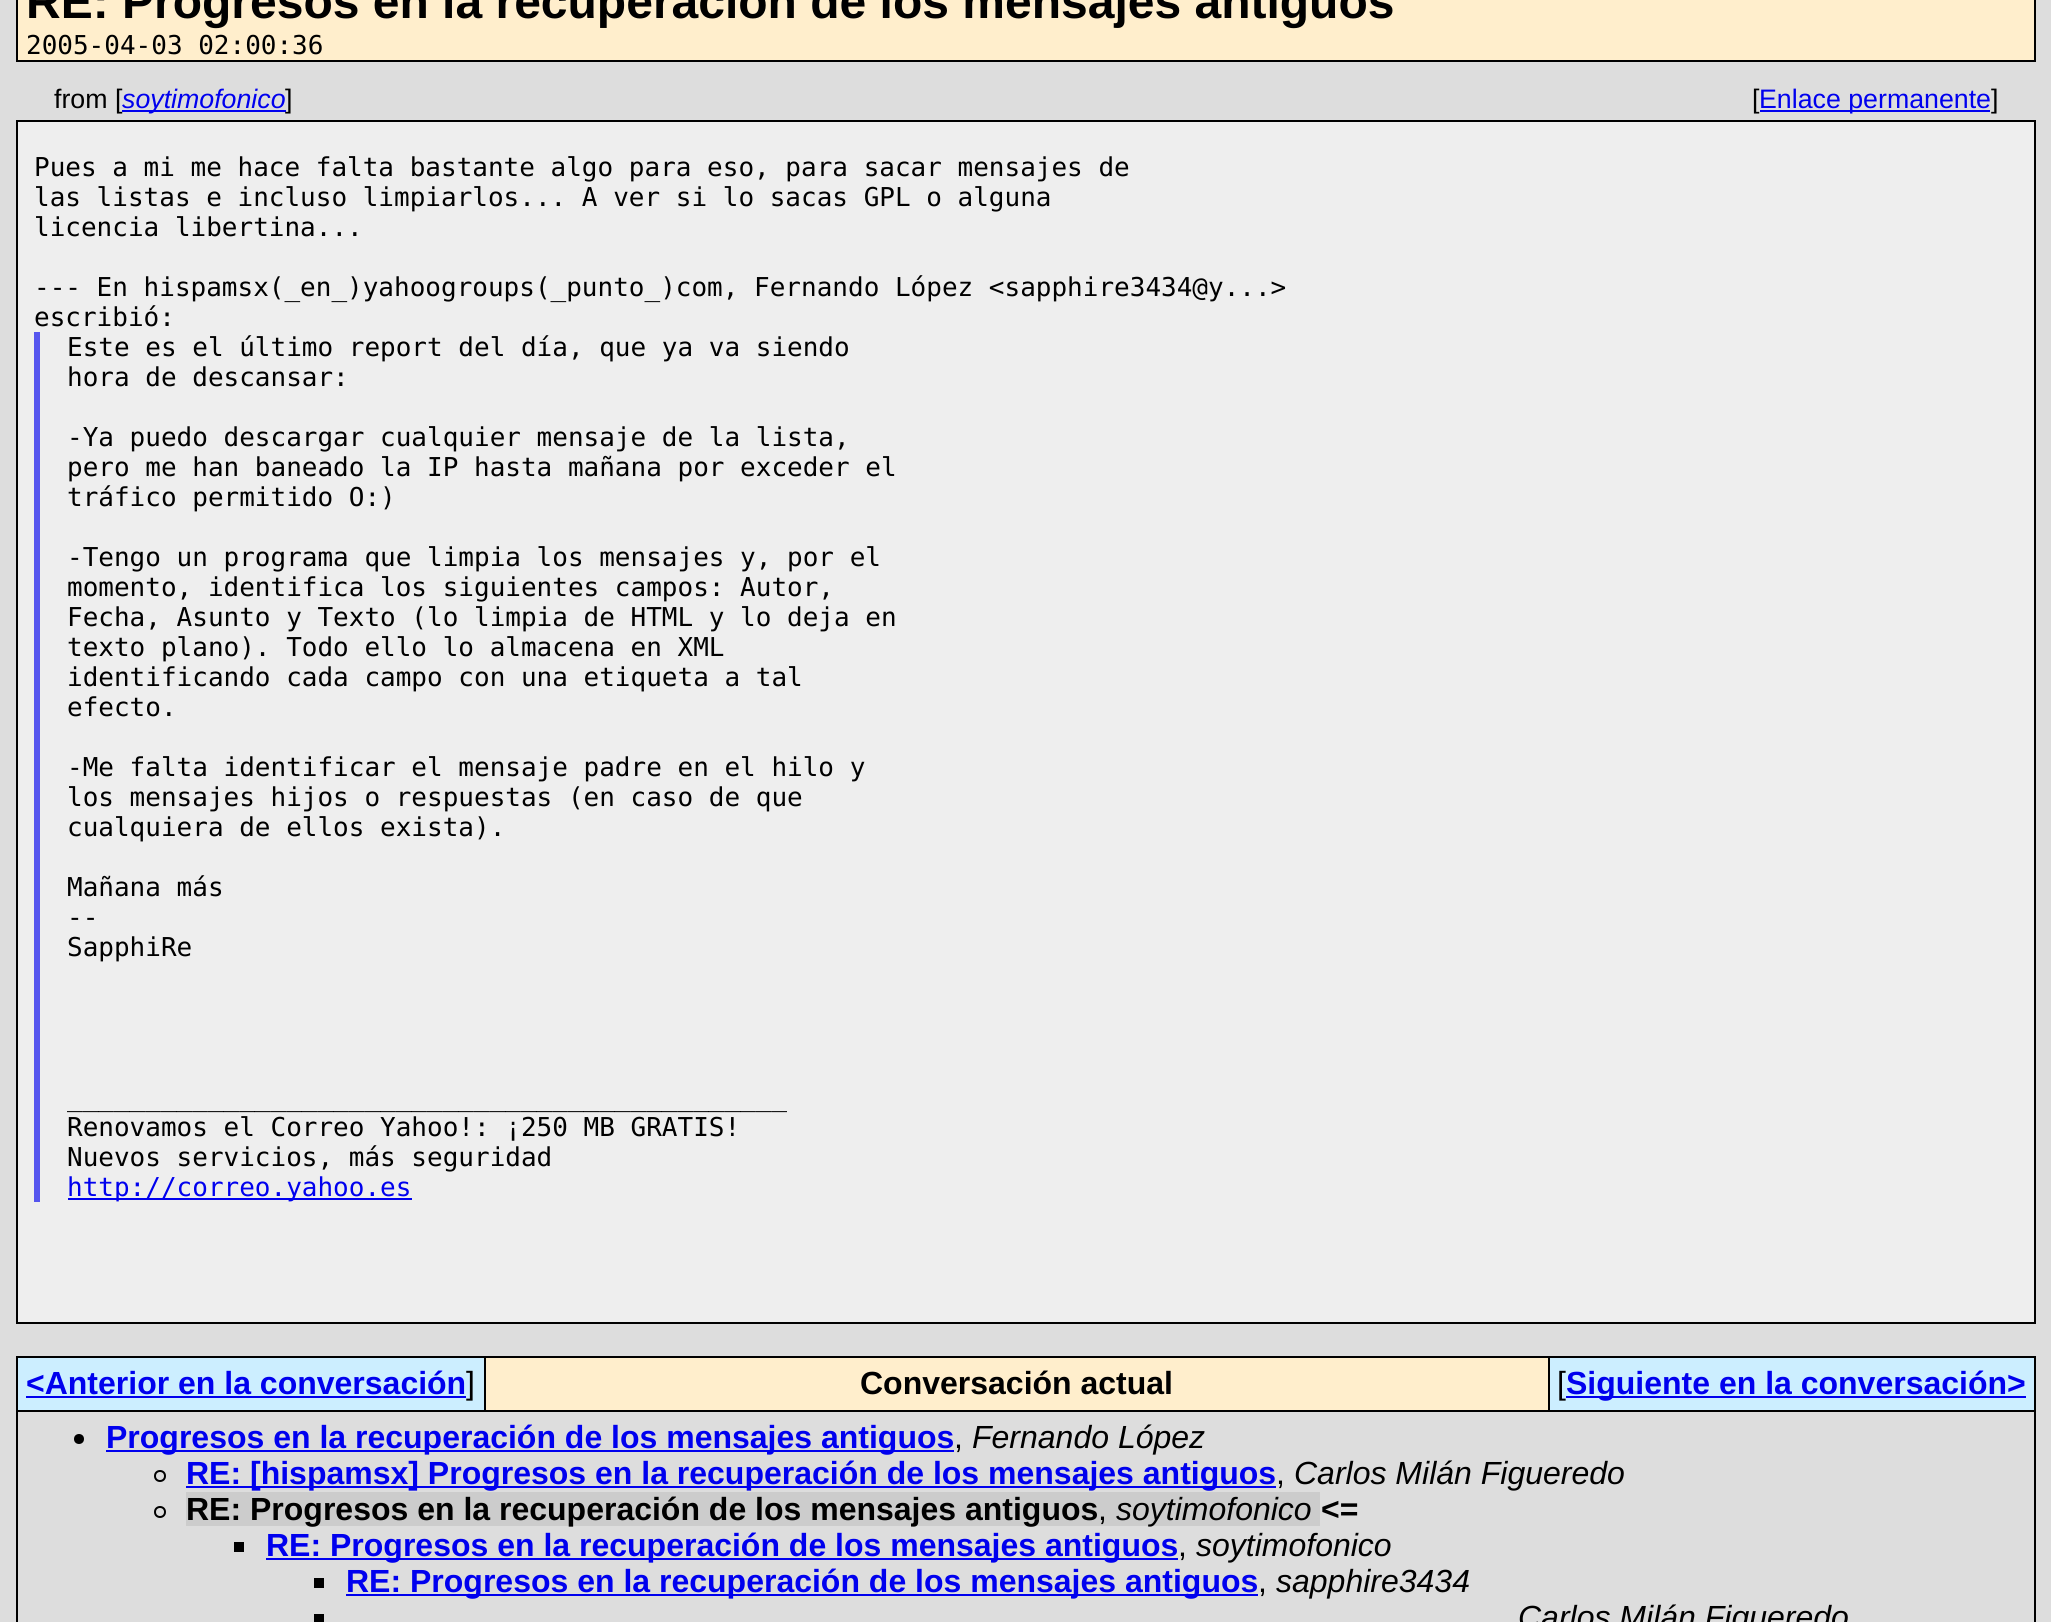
import math
import cairo

surface = cairo.ImageSurface(cairo.FORMAT_RGB24, 2051, 1622)
ctx = cairo.Context(surface)
options = cairo.FontOptions()
options.set_hint_metrics(cairo.HINT_METRICS_OFF)
options.set_hint_style(cairo.HINT_STYLE_NONE)
ctx.set_font_options(options)
ctx.set_miter_limit(4)


def set_color(code):
    ctx.set_source_rgb(*(v / 255 for v in bytes.fromhex(code[-6:])))


def draw_text(x, y, s, family, size, color, bold=False, italic=False):
    ctx.select_font_face(family, cairo.FONT_SLANT_ITALIC if italic else cairo.FONT_SLANT_NORMAL, cairo.FONT_WEIGHT_BOLD if bold else cairo.FONT_WEIGHT_NORMAL)
    ctx.set_font_size(size)
    set_color(color)
    ctx.move_to(x, y)
    ctx.show_text(s)


def fill_rect(x, y, w, h, color):
    set_color(color)
    ctx.rectangle(x, y, w, h)
    ctx.fill()


set_color("#dddddd")
ctx.paint()
set_color("#ffeecc")
ctx.rectangle(17, -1, 2018, 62)
ctx.fill_preserve()
set_color("#000000")
ctx.stroke()
draw_text(26, 18, "RE: Progresos en la recuperación de los mensajes antiguos", "Liberation Sans", 48, "#000000", bold=True)
draw_text(26, 54, "2005-04-03 02:00:36", "DejaVu Sans Mono", 26, "#000000")
draw_text(54, 108, "from [", "Liberation Sans", 26.75, "#000000")
fill_rect(122, 110, 164, 2, "#0000ee")
draw_text(122, 108, "soytimofonico", "Liberation Sans", 26.75, "#0000ee", italic=True)
draw_text(285, 108, "]", "Liberation Sans", 26.75, "#000000")
draw_text(1752, 108, "[", "Liberation Sans", 26.75, "#000000")
fill_rect(1760, 110, 230, 2, "#0000ee")
draw_text(1759, 108, "Enlace permanente", "Liberation Sans", 26.75, "#0000ee")
draw_text(1991, 108, "]", "Liberation Sans", 26.75, "#000000")
set_color("#eeeeee")
ctx.rectangle(17, 121, 2018, 1202)
ctx.fill_preserve()
set_color("#000000")
ctx.stroke()
draw_text(34, 176, "Pues a mi me hace falta bastante algo para eso, para sacar mensajes de", "DejaVu Sans Mono", 26, "#000000")
draw_text(34, 206, "las listas e incluso limpiarlos... A ver si lo sacas GPL o alguna", "DejaVu Sans Mono", 26, "#000000")
draw_text(34, 236, "licencia libertina...", "DejaVu Sans Mono", 26, "#000000")
draw_text(34, 296, "--- En hispamsx(_en_)yahoogroups(_punto_)com, Fernando López <sapphire3434@y...>", "DejaVu Sans Mono", 26, "#000000")
draw_text(34, 326, "escribió:", "DejaVu Sans Mono", 26, "#000000")
fill_rect(34, 332, 6, 870, "#5555ee")
draw_text(67, 356, "Este es el último report del día, que ya va siendo", "DejaVu Sans Mono", 26, "#000000")
draw_text(67, 386, "hora de descansar:", "DejaVu Sans Mono", 26, "#000000")
draw_text(67, 446, "-Ya puedo descargar cualquier mensaje de la lista,", "DejaVu Sans Mono", 26, "#000000")
draw_text(67, 476, "pero me han baneado la IP hasta mañana por exceder el", "DejaVu Sans Mono", 26, "#000000")
draw_text(67, 506, "tráfico permitido O:)", "DejaVu Sans Mono", 26, "#000000")
draw_text(67, 566, "-Tengo un programa que limpia los mensajes y, por el", "DejaVu Sans Mono", 26, "#000000")
draw_text(67, 596, "momento, identifica los siguientes campos: Autor,", "DejaVu Sans Mono", 26, "#000000")
draw_text(67, 626, "Fecha, Asunto y Texto (lo limpia de HTML y lo deja en", "DejaVu Sans Mono", 26, "#000000")
draw_text(67, 656, "texto plano). Todo ello lo almacena en XML", "DejaVu Sans Mono", 26, "#000000")
draw_text(67, 686, "identificando cada campo con una etiqueta a tal", "DejaVu Sans Mono", 26, "#000000")
draw_text(67, 716, "efecto.", "DejaVu Sans Mono", 26, "#000000")
draw_text(67, 776, "-Me falta identificar el mensaje padre en el hilo y", "DejaVu Sans Mono", 26, "#000000")
draw_text(67, 806, "los mensajes hijos o respuestas (en caso de que", "DejaVu Sans Mono", 26, "#000000")
draw_text(67, 836, "cualquiera de ellos exista).", "DejaVu Sans Mono", 26, "#000000")
draw_text(67, 896, "Mañana más", "DejaVu Sans Mono", 26, "#000000")
draw_text(67, 926, "--", "DejaVu Sans Mono", 26, "#000000")
draw_text(67, 956, "SapphiRe", "DejaVu Sans Mono", 26, "#000000")
draw_text(67, 1106, "______________________________________________", "DejaVu Sans Mono", 26, "#000000")
draw_text(67, 1136, "Renovamos el Correo Yahoo!: ¡250 MB GRATIS!", "DejaVu Sans Mono", 26, "#000000")
draw_text(67, 1166, "Nuevos servicios, más seguridad", "DejaVu Sans Mono", 26, "#000000")
fill_rect(68, 1198, 344, 2, "#0000ee")
draw_text(67, 1196, "http://correo.yahoo.es", "DejaVu Sans Mono", 26, "#0000ee")
fill_rect(16, 1356, 2020, 266, "#000000")
fill_rect(18, 1358, 466, 52, "#cceeff")
draw_text(26, 1394, "<Anterior en la conversación", "Liberation Sans", 32, "#0000ee", bold=True)
fill_rect(26, 1396, 440, 2, "#0000ee")
draw_text(466, 1394, "]", "Liberation Sans", 32, "#000000")
fill_rect(486, 1358, 1062, 52, "#ffeecc")
draw_text(860, 1394, "Conversación actual", "Liberation Sans", 32, "#000000", bold=True)
fill_rect(1550, 1358, 484, 52, "#cceeff")
draw_text(1557, 1394, "[", "Liberation Sans", 32, "#000000")
fill_rect(1566, 1396, 460, 2, "#0000ee")
draw_text(1566, 1394, "Siguiente en la conversación>", "Liberation Sans", 32, "#0000ee", bold=True)
fill_rect(18, 1412, 2016, 210, "#dddddd")
set_color("#000000")
ctx.new_path()
ctx.arc(79, 1439, 5, 0, 2 * math.pi)
ctx.fill()
fill_rect(106, 1450, 848, 2, "#0000ee")
draw_text(106, 1448, "Progresos en la recuperación de los mensajes antiguos", "Liberation Sans", 32, "#0000ee", bold=True)
draw_text(972, 1448, "Fernando López", "Liberation Sans", 32, "#000000", italic=True)
draw_text(954, 1448, ",", "Liberation Sans", 32, "#000000")
ctx.new_path()
ctx.arc(160, 1476, 5, 0, 2 * math.pi)
ctx.stroke()
fill_rect(186, 1486, 1090, 2, "#0000ee")
draw_text(186, 1484, "RE: [hispamsx] Progresos en la recuperación de los mensajes antiguos", "Liberation Sans", 32, "#0000ee", bold=True)
draw_text(1294, 1484, "Carlos Milán Figueredo", "Liberation Sans", 32, "#000000", italic=True)
draw_text(1276, 1484, ",", "Liberation Sans", 32, "#000000")
ctx.new_path()
ctx.arc(160, 1512, 5, 0, 2 * math.pi)
ctx.stroke()
fill_rect(186, 1492, 1134, 34, "#cccccc")
draw_text(186, 1520, "RE: Progresos en la recuperación de los mensajes antiguos", "Liberation Sans", 32, "#000000", bold=True)
draw_text(1116, 1520, "soytimofonico", "Liberation Sans", 32, "#000000", italic=True)
draw_text(1321, 1520, "<=", "Liberation Sans", 32, "#000000", bold=True)
draw_text(1098, 1520, ",", "Liberation Sans", 32, "#000000")
fill_rect(234, 1542, 10, 10, "#000000")
fill_rect(266, 1558, 912, 2, "#0000ee")
draw_text(266, 1556, "RE: Progresos en la recuperación de los mensajes antiguos", "Liberation Sans", 32, "#0000ee", bold=True)
draw_text(1196, 1556, "soytimofonico", "Liberation Sans", 32, "#000000", italic=True)
draw_text(1178, 1556, ",", "Liberation Sans", 32, "#000000")
fill_rect(314, 1578, 10, 10, "#000000")
fill_rect(346, 1594, 912, 2, "#0000ee")
draw_text(346, 1592, "RE: Progresos en la recuperación de los mensajes antiguos", "Liberation Sans", 32, "#0000ee", bold=True)
draw_text(1276, 1592, "sapphire3434", "Liberation Sans", 32, "#000000", italic=True)
draw_text(1258, 1592, ",", "Liberation Sans", 32, "#000000")
fill_rect(314, 1614, 10, 8, "#000000")
draw_text(1518, 1628, "Carlos Milán Figueredo", "Liberation Sans", 32, "#000000", italic=True)
surface.write_to_png("output.png")
